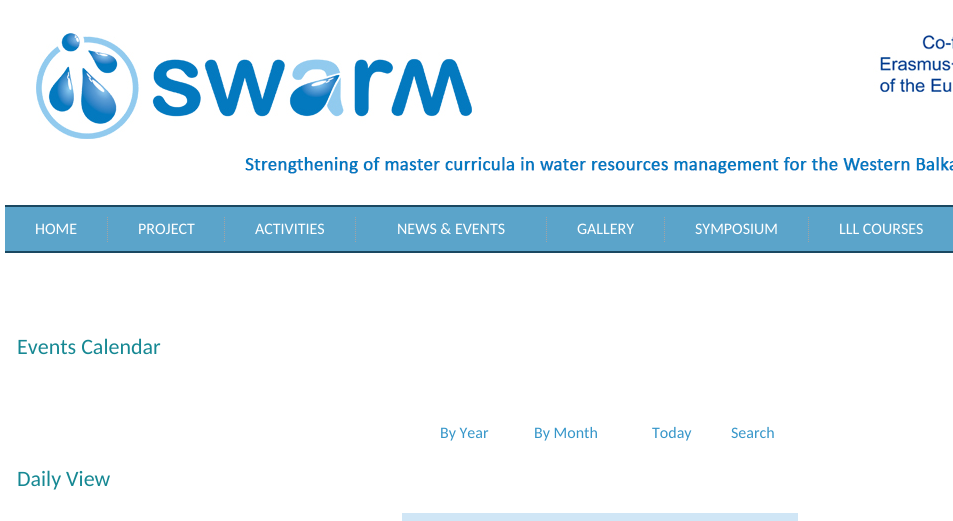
import math
import cairo

surface = cairo.ImageSurface(cairo.FORMAT_RGB24, 953, 521)
ctx = cairo.Context(surface)
options = cairo.FontOptions()
options.set_hint_metrics(cairo.HINT_METRICS_OFF)
options.set_hint_style(cairo.HINT_STYLE_NONE)
ctx.set_font_options(options)
ctx.set_miter_limit(4)


def set_color(code):
    ctx.set_source_rgb(*(v / 255 for v in bytes.fromhex(code[-6:])))


def draw_text(x, y, s, family, size, color, bold=False, italic=False):
    ctx.select_font_face(family, cairo.FONT_SLANT_ITALIC if italic else cairo.FONT_SLANT_NORMAL, cairo.FONT_WEIGHT_BOLD if bold else cairo.FONT_WEIGHT_NORMAL)
    ctx.set_font_size(size)
    set_color(color)
    ctx.move_to(x, y)
    ctx.show_text(s)


def fill_rect(x, y, w, h, color):
    set_color(color)
    ctx.rectangle(x, y, w, h)
    ctx.fill()


def draw_image(path, x, y, w, h):
    ctx.save()
    ctx.set_source_surface(cairo.ImageSurface.create_from_png(path), x, y)
    ctx.rectangle(x, y, w, h)
    ctx.fill()
    ctx.restore()


set_color("#ffffff")
ctx.paint()
draw_image("assets/img1.png", 36, 33, 917, 141)
fill_rect(5, 207, 948, 44, "#5ba4ca")
fill_rect(5, 205, 948, 2, "#1a4861")
fill_rect(5, 251, 948, 2, "#1a4861")
draw_text(35, 234, "HOME", "Carlito", 16, "#ffffff")
draw_image("assets/img2.png", 107, 217, 1, 25)
draw_text(138, 234, "PROJECT", "Carlito", 16, "#ffffff")
draw_image("assets/img2.png", 224, 217, 1, 25)
draw_text(255, 234, "ACTIVITIES", "Carlito", 16, "#ffffff")
draw_image("assets/img2.png", 355, 217, 1, 25)
draw_text(397, 234, "NEWS & EVENTS", "Carlito", 16, "#ffffff")
draw_image("assets/img2.png", 546, 217, 1, 25)
draw_text(577, 234, "GALLERY", "Carlito", 16, "#ffffff")
draw_image("assets/img2.png", 664, 217, 1, 25)
draw_text(695, 234, "SYMPOSIUM", "Carlito", 16, "#ffffff")
draw_image("assets/img2.png", 808, 217, 1, 25)
draw_text(839, 234, "LLL COURSES", "Carlito", 16, "#ffffff")
draw_text(17, 354, "Events Calendar", "Carlito", 22, "#168893")
draw_text(440, 438, "By Year", "Carlito", 16, "#3696c9")
draw_text(534, 438, "By Month", "Carlito", 16, "#3696c9")
draw_text(652, 438, "Today", "Carlito", 16, "#3696c9")
draw_text(731, 438, "Search", "Carlito", 16, "#3696c9")
draw_text(17, 486, "Daily View", "Carlito", 22, "#168893")
fill_rect(402, 513, 396, 8, "#d0e6f6")
surface.write_to_png("output.png")
